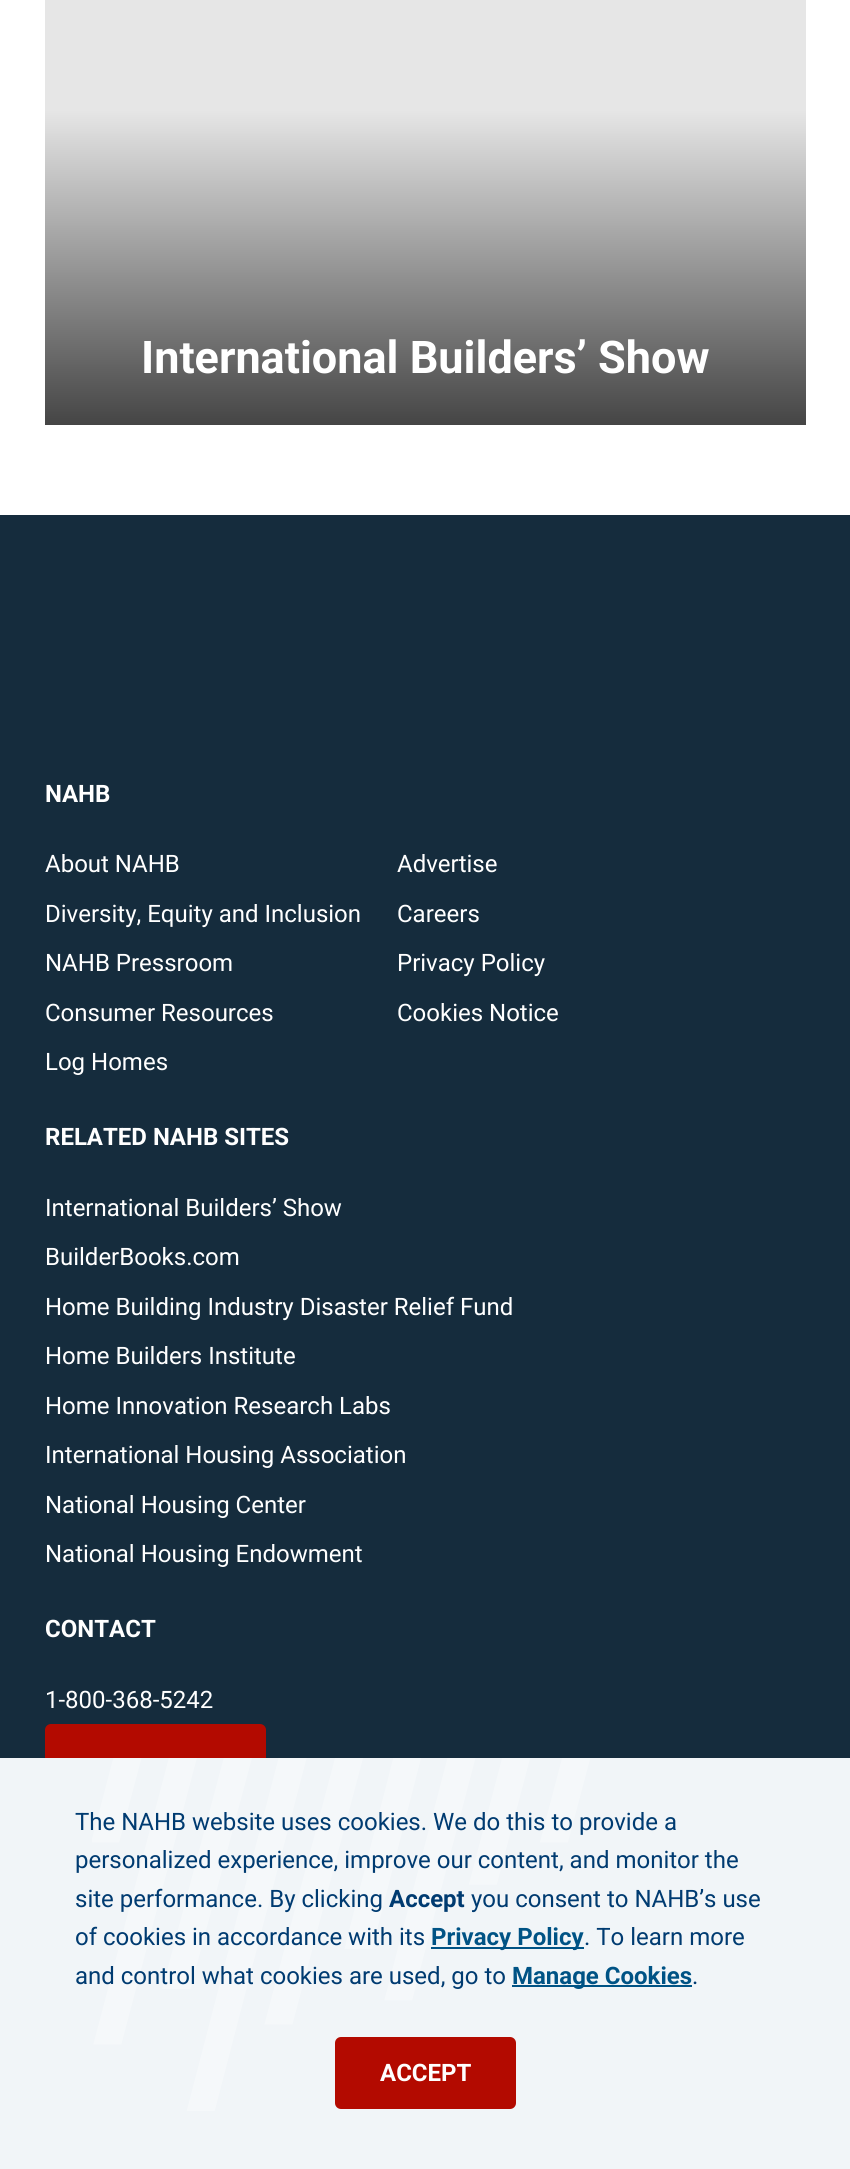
import math
import cairo

surface = cairo.ImageSurface(cairo.FORMAT_RGB24, 850, 2169)
ctx = cairo.Context(surface)
options = cairo.FontOptions()
options.set_hint_metrics(cairo.HINT_METRICS_OFF)
options.set_hint_style(cairo.HINT_STYLE_NONE)
ctx.set_font_options(options)
ctx.set_miter_limit(4)


def set_color(code):
    ctx.set_source_rgb(*(v / 255 for v in bytes.fromhex(code[-6:])))


def draw_text(x, y, s, family, size, color, bold=False, italic=False):
    ctx.select_font_face(family, cairo.FONT_SLANT_ITALIC if italic else cairo.FONT_SLANT_NORMAL, cairo.FONT_WEIGHT_BOLD if bold else cairo.FONT_WEIGHT_NORMAL)
    ctx.set_font_size(size)
    set_color(color)
    ctx.move_to(x, y)
    ctx.show_text(s)


def fill_rect(x, y, w, h, color):
    set_color(color)
    ctx.rectangle(x, y, w, h)
    ctx.fill()


def rounded_rect(x, y, w, h, r):
    ctx.new_sub_path()
    for i, (u, v) in enumerate([(x + w - r, y + h - r), (x + r, y + h - r), (x + r, y + r), (x + w - r, y + r)]):
        ctx.arc(u, v, r, i * math.pi / 2, (i + 1) * math.pi / 2)
    ctx.close_path()


def draw_image(path, x, y, w, h):
    ctx.save()
    ctx.set_source_surface(cairo.ImageSurface.create_from_png(path), x, y)
    ctx.rectangle(x, y, w, h)
    ctx.fill()
    ctx.restore()


set_color("#ffffff")
ctx.paint()
gradient = cairo.LinearGradient(425, 425, 425, -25)
gradient.add_color_stop_rgba(0, 0.271, 0.271, 0.271, 1)
gradient.add_color_stop_rgba(0.7, 0.902, 0.902, 0.902, 1)
ctx.set_source(gradient)
ctx.rectangle(45, 0, 761, 425)
ctx.fill()
draw_text(141, 373, "International Builders’ Show", "Roboto", 45, "#ffffff", bold=True)
fill_rect(0, 515, 850, 1243, "#152c3d")
draw_text(45, 802, "NAHB", "Roboto", 24, "#ffffff", bold=True)
draw_text(45, 872, "About NAHB", "Roboto", 24, "#ffffff")
draw_text(45, 922, "Diversity, Equity and Inclusion", "Roboto", 24, "#ffffff")
draw_text(45, 971, "NAHB Pressroom", "Roboto", 24, "#ffffff")
draw_text(45, 1021, "Consumer Resources", "Roboto", 24, "#ffffff")
draw_text(45, 1070, "Log Homes", "Roboto", 24, "#ffffff")
draw_text(397, 872, "Advertise", "Roboto", 24, "#ffffff")
draw_text(397, 922, "Careers", "Roboto", 24, "#ffffff")
draw_text(397, 971, "Privacy Policy", "Roboto", 24, "#ffffff")
draw_text(397, 1021, "Cookies Notice", "Roboto", 24, "#ffffff")
draw_text(45, 1145, "RELATED NAHB SITES", "Roboto", 24, "#ffffff", bold=True)
draw_text(45, 1216, "International Builders’ Show", "Roboto", 24, "#ffffff")
draw_text(45, 1265, "BuilderBooks.com", "Roboto", 24, "#ffffff")
draw_text(45, 1315, "Home Building Industry Disaster Relief Fund", "Roboto", 24, "#ffffff")
draw_text(45, 1364, "Home Builders Institute", "Roboto", 24, "#ffffff")
draw_text(45, 1414, "Home Innovation Research Labs", "Roboto", 24, "#ffffff")
draw_text(45, 1463, "International Housing Association", "Roboto", 24, "#ffffff")
draw_text(45, 1513, "National Housing Center", "Roboto", 24, "#ffffff")
draw_text(45, 1562, "National Housing Endowment", "Roboto", 24, "#ffffff")
draw_text(45, 1637, "CONTACT", "Roboto", 24, "#ffffff", bold=True)
draw_text(45, 1708, "1-800-368-5242", "Roboto", 24, "#ffffff")
set_color("#b30a00")
rounded_rect(45, 1724, 221, 72, 6)
ctx.fill()
fill_rect(0, 1758, 850, 411, "#f1f5f8")
draw_image("assets/img1.png", 92, 1758, 498, 353)
draw_text(75, 1830, "The NAHB website uses cookies. We do this to provide a", "Roboto", 24, "#003b71")
draw_text(75, 1868, "personalized experience, improve our content, and monitor the", "Roboto", 24, "#003b71")
draw_text(75, 1907, "site performance. By clicking", "Roboto", 24, "#003b71")
draw_text(389, 1907, "Accept", "Roboto", 24, "#003b71", bold=True)
draw_text(471, 1907, "you consent to NAHB’s use", "Roboto", 24, "#003b71")
draw_text(75, 1945, "of cookies in accordance with its", "Roboto", 24, "#003b71")
fill_rect(431, 1947, 153, 2, "#005385")
draw_text(431, 1945, "Privacy Policy", "Roboto", 24, "#005385", bold=True)
draw_text(584, 1945, ". To learn more", "Roboto", 24, "#003b71")
draw_text(75, 1984, "and control what cookies are used, go to", "Roboto", 24, "#003b71")
fill_rect(512, 1985, 180, 2, "#005385")
draw_text(512, 1984, "Manage Cookies", "Roboto", 24, "#005385", bold=True)
draw_text(692, 1984, ".", "Roboto", 24, "#003b71")
set_color("#b30a00")
rounded_rect(335, 2037, 181, 72, 6)
ctx.fill()
draw_text(380, 2081, "ACCEPT", "Roboto", 24, "#ffffff", bold=True)
surface.write_to_png("output.png")
